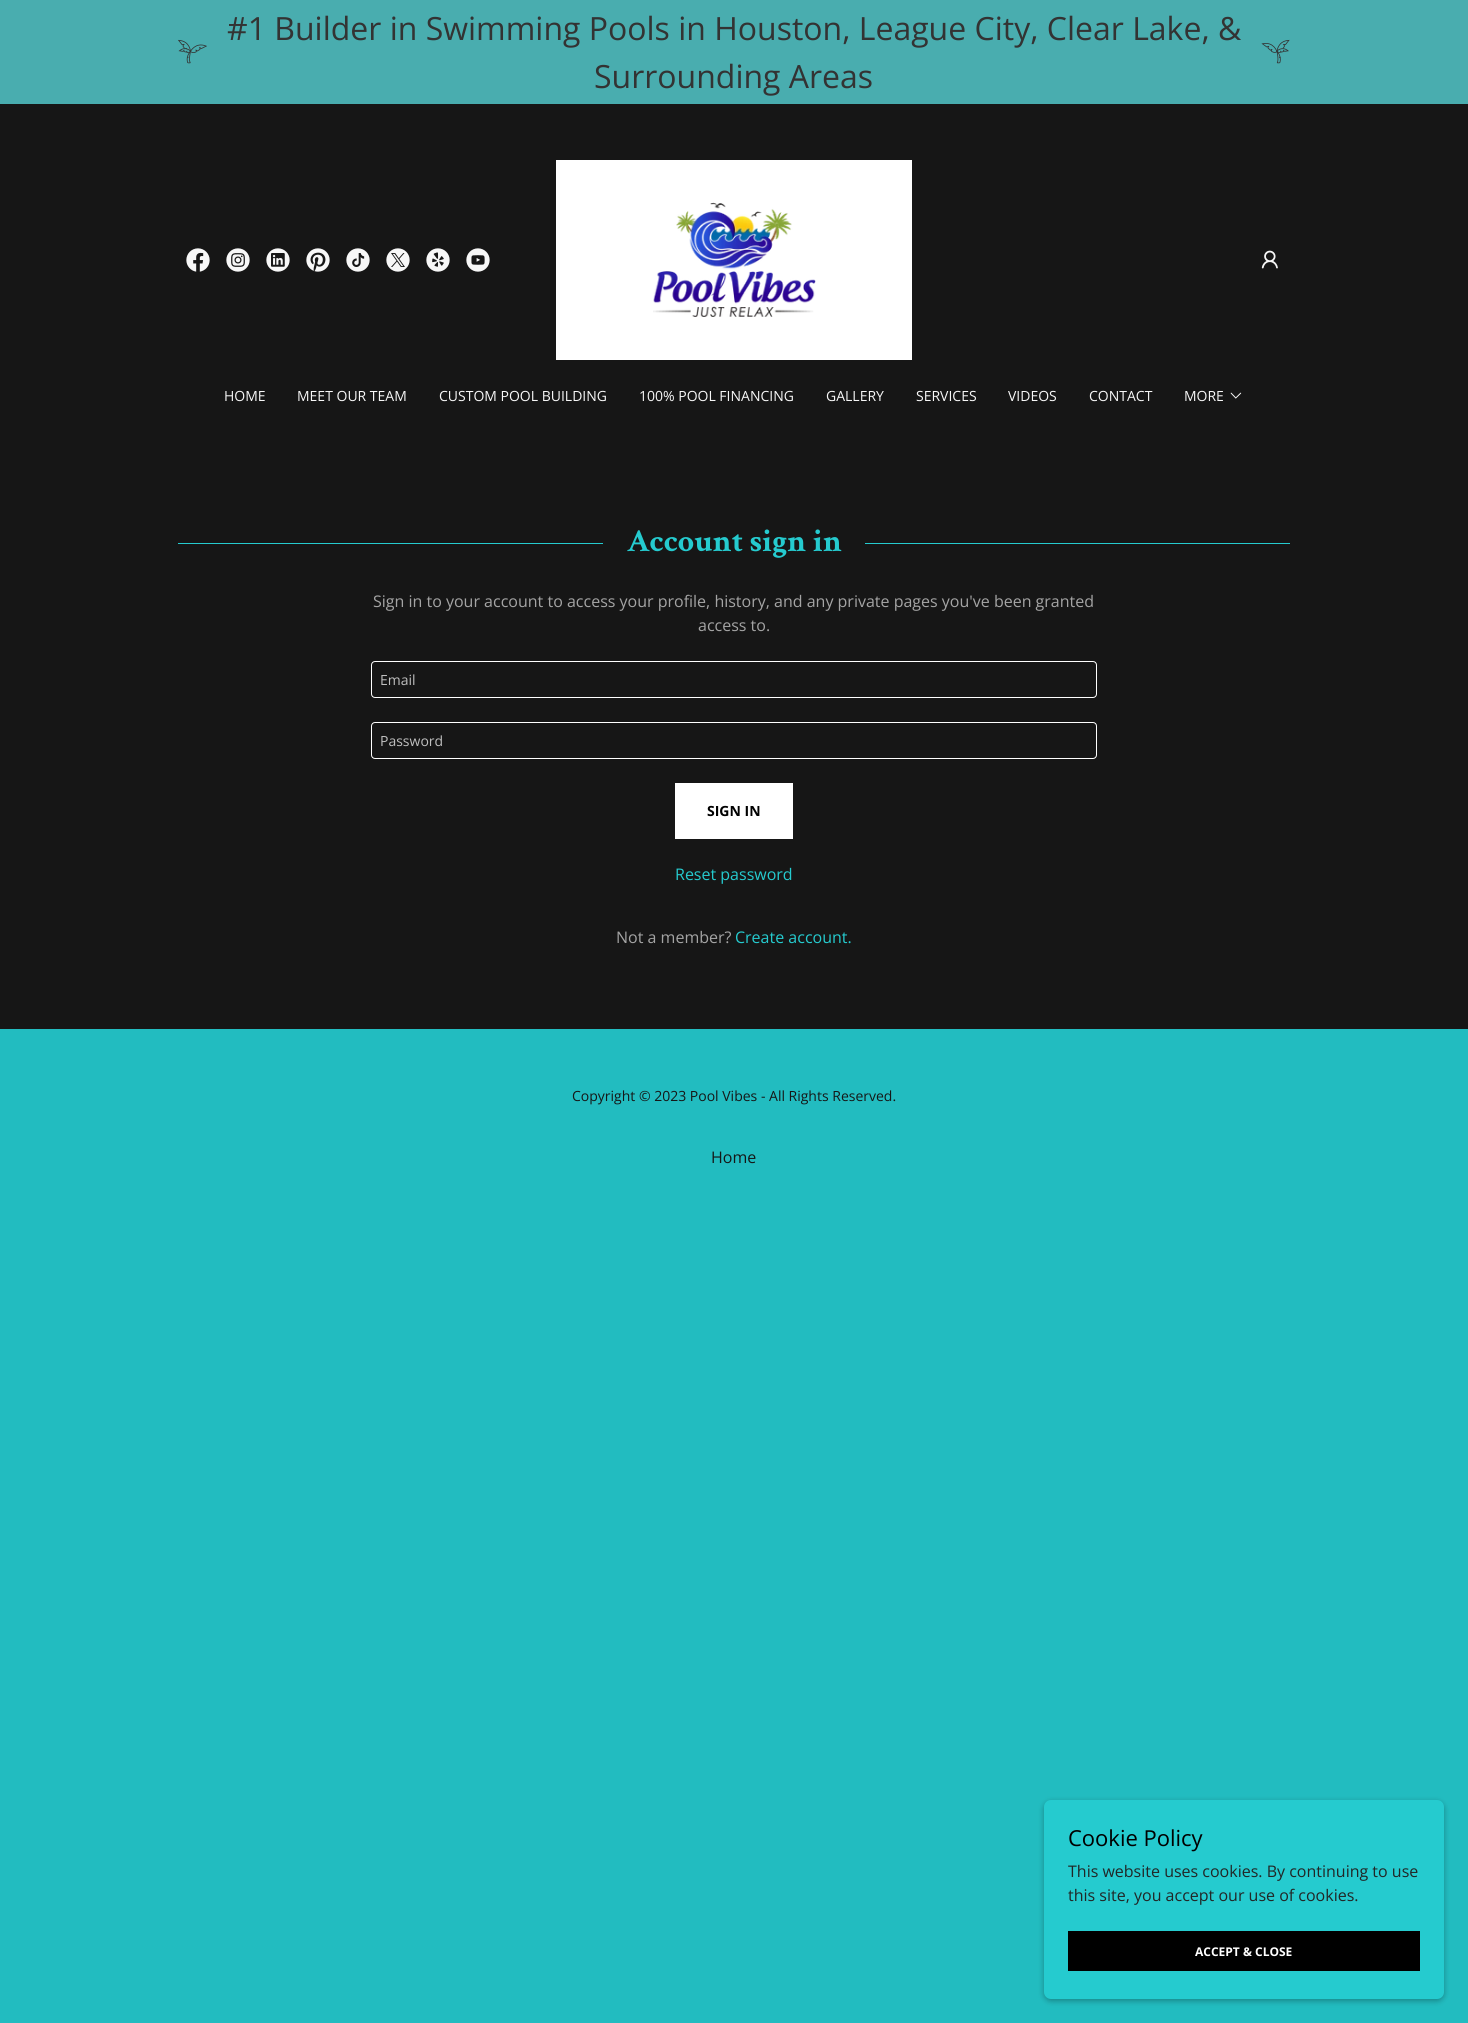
import math
import cairo

surface = cairo.ImageSurface(cairo.FORMAT_RGB24, 1468, 2023)
ctx = cairo.Context(surface)
options = cairo.FontOptions()
options.set_hint_metrics(cairo.HINT_METRICS_OFF)
options.set_hint_style(cairo.HINT_STYLE_NONE)
ctx.set_font_options(options)
ctx.set_miter_limit(4)


def set_color(code):
    ctx.set_source_rgb(*(v / 255 for v in bytes.fromhex(code[-6:])))


def draw_text(x, y, s, family, size, color, bold=False, italic=False):
    ctx.select_font_face(family, cairo.FONT_SLANT_ITALIC if italic else cairo.FONT_SLANT_NORMAL, cairo.FONT_WEIGHT_BOLD if bold else cairo.FONT_WEIGHT_NORMAL)
    ctx.set_font_size(size)
    set_color(color)
    ctx.move_to(x, y)
    ctx.show_text(s)


def fill_rect(x, y, w, h, color):
    set_color(color)
    ctx.rectangle(x, y, w, h)
    ctx.fill()


def rounded_rect(x, y, w, h, r):
    ctx.new_sub_path()
    for i, (u, v) in enumerate([(x + w - r, y + h - r), (x + r, y + h - r), (x + r, y + r), (x + w - r, y + r)]):
        ctx.arc(u, v, r, i * math.pi / 2, (i + 1) * math.pi / 2)
    ctx.close_path()


def draw_shadow(x, y, w, h, r, blur, alpha):
    ctx.push_group_with_content(cairo.CONTENT_ALPHA)
    ctx.set_operator(cairo.OPERATOR_SOURCE)
    for i in range(15, -16, -2):
        e = blur * i / 6
        if min(w, h) + 2 * e > 0:
            ctx.set_source_rgba(0, 0, 0, alpha * math.erfc((i - 1) / 8.5) / 2)
            rounded_rect(x - e, y - e, w + 2 * e, h + 2 * e, max(0, min(r + e + blur * .6, min(w, h) / 2 + e)))
            ctx.fill()
    ctx.mask(ctx.pop_group())


def draw_image(path, x, y, w, h):
    ctx.save()
    ctx.set_source_surface(cairo.ImageSurface.create_from_png(path), x, y)
    ctx.rectangle(x, y, w, h)
    ctx.fill()
    ctx.restore()


set_color("#22bcc0")
ctx.paint()
fill_rect(0, 104, 1468, 925, "#161616")
fill_rect(0, 0, 1468, 104, "#49adaf")
draw_image("assets/img1.png", 178, 39, 29, 25)
draw_text(227, 40, "#1 Builder in Swimming Pools in Houston, League City, Clear Lake, &", "Open Sans", 32, "#333333")
draw_text(594, 88, "Surrounding Areas", "Open Sans", 32, "#333333")
draw_image("assets/img2.png", 1261, 39, 29, 25)
draw_image("assets/img3.png", 186, 248, 24, 24)
draw_image("assets/img4.png", 226, 248, 24, 24)
draw_image("assets/img5.png", 266, 248, 24, 24)
draw_image("assets/img6.png", 306, 248, 24, 24)
draw_image("assets/img7.png", 346, 248, 24, 24)
draw_image("assets/img8.png", 386, 248, 24, 24)
draw_image("assets/img9.png", 426, 248, 24, 24)
draw_image("assets/img10.png", 466, 248, 24, 24)
fill_rect(556, 160, 356, 200, "#ffffff")
draw_image("assets/img11.png", 653, 202, 163, 115)
draw_image("assets/img12.png", 1261, 250, 17, 19)
draw_text(224, 401, "HOME", "Open Sans", 14, "#f7f7f7")
draw_text(297, 401, "MEET OUR TEAM", "Open Sans", 14, "#f7f7f7")
draw_text(439, 401, "CUSTOM POOL BUILDING", "Open Sans", 14, "#f7f7f7")
draw_text(639, 401, "100% POOL FINANCING", "Open Sans", 14, "#f7f7f7")
draw_text(826, 401, "GALLERY", "Open Sans", 14, "#f7f7f7")
draw_text(916, 401, "SERVICES", "Open Sans", 14, "#f7f7f7")
draw_text(1008, 401, "VIDEOS", "Open Sans", 14, "#f7f7f7")
draw_text(1089, 401, "CONTACT", "Open Sans", 14, "#f7f7f7")
draw_text(1184, 401, "MORE", "Open Sans", 14, "#f7f7f7")
draw_image("assets/img13.png", 1230, 392, 12, 7)
fill_rect(178, 543, 425, 1, "#25cbcf")
draw_text(627, 551, "Account sign in", "Crimson Text", 32, "#25cbcf", bold=True)
fill_rect(865, 543, 425, 1, "#25cbcf")
draw_text(373, 607, "Sign in to your account to access your profile, history, and any private pages you've been granted", "Open Sans", 16, "#a4a4a4")
draw_text(698, 631, "access to.", "Open Sans", 16, "#a4a4a4")
rounded_rect(371.5, 661.5, 725, 36, 3.5)
set_color("#ffffff")
ctx.set_line_width(1)
ctx.stroke()
draw_text(380, 685, "Email", "Open Sans", 14, "#bfbfbf")
rounded_rect(371.5, 722.5, 725, 36, 3.5)
set_color("#ffffff")
ctx.stroke()
draw_text(380, 746, "Password", "Open Sans", 14, "#bfbfbf")
fill_rect(675, 783, 118, 56, "#ffffff")
draw_text(707, 816, "SIGN IN", "Open Sans", 14, "#000000", bold=True)
draw_text(675, 880, "Reset password", "Open Sans", 16, "#25cbcf")
draw_text(616, 943, "Not a member?", "Open Sans", 16, "#a4a4a4")
draw_text(735, 943, "Create account.", "Open Sans", 16, "#25cbcf")
draw_text(572, 1101, "Copyright © 2023 Pool Vibes - All Rights Reserved.", "Open Sans", 14, "#151717")
draw_text(711, 1163, "Home", "Open Sans", 16, "#151717")
set_color("#000000")
draw_shadow(1044, 1802, 400, 199, 7, 3, 0.3)
set_color("#25cbcf")
rounded_rect(1044, 1800, 400, 199, 7)
ctx.fill()
draw_text(1068, 1846, "Cookie Policy", "Open Sans", 22, "#000000")
draw_text(1068, 1877, "This website uses cookies. By continuing to use", "Open Sans", 16, "#212626")
draw_text(1068, 1901, "this site, you accept our use of cookies.", "Open Sans", 16, "#212626")
fill_rect(1068, 1931, 352, 40, "#000000")
draw_text(1195, 1956, "ACCEPT & CLOSE", "Open Sans", 12, "#ffffff", bold=True)
surface.write_to_png("output.png")
